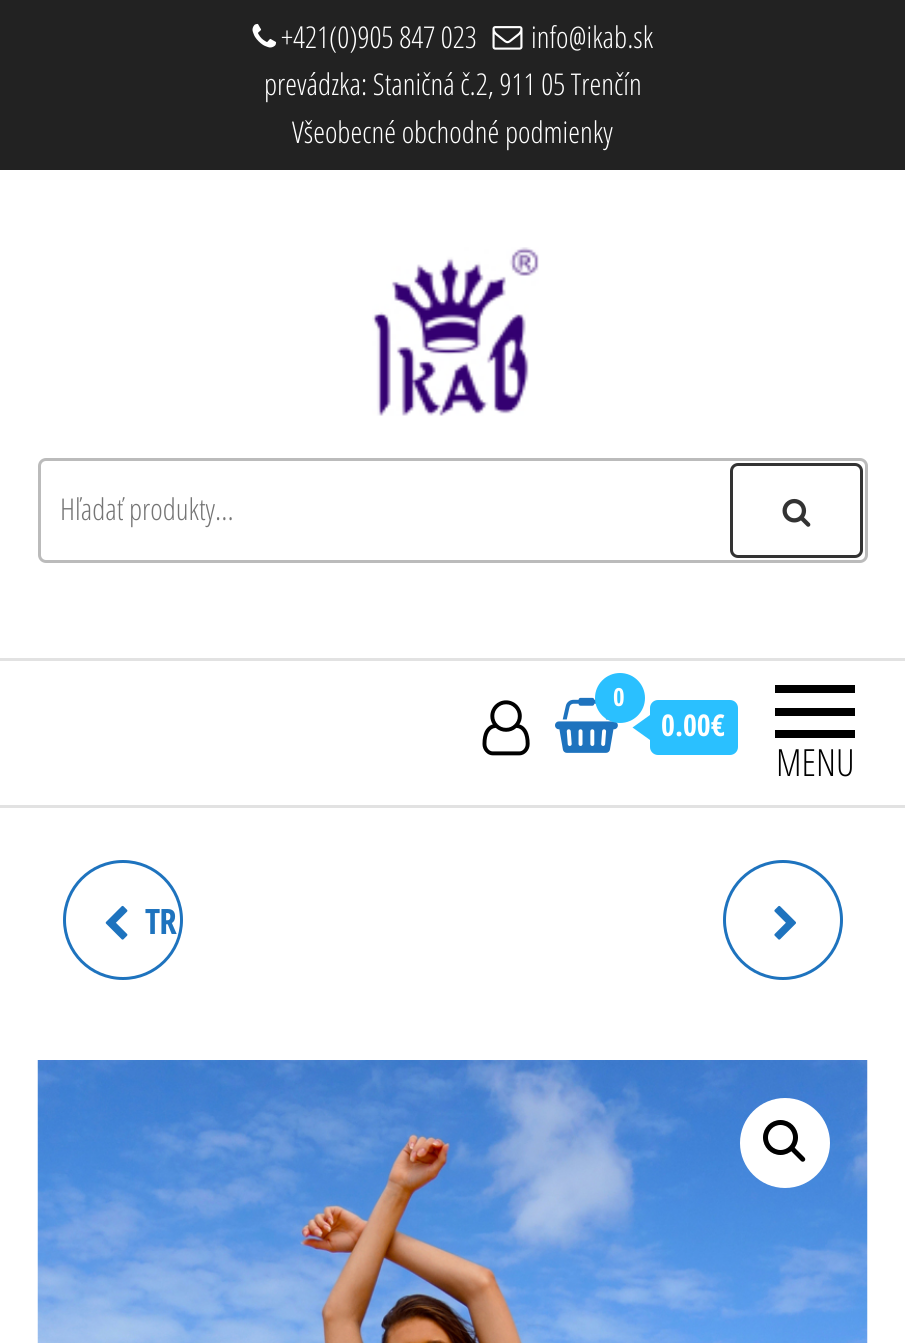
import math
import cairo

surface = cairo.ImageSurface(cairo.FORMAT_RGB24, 905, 1343)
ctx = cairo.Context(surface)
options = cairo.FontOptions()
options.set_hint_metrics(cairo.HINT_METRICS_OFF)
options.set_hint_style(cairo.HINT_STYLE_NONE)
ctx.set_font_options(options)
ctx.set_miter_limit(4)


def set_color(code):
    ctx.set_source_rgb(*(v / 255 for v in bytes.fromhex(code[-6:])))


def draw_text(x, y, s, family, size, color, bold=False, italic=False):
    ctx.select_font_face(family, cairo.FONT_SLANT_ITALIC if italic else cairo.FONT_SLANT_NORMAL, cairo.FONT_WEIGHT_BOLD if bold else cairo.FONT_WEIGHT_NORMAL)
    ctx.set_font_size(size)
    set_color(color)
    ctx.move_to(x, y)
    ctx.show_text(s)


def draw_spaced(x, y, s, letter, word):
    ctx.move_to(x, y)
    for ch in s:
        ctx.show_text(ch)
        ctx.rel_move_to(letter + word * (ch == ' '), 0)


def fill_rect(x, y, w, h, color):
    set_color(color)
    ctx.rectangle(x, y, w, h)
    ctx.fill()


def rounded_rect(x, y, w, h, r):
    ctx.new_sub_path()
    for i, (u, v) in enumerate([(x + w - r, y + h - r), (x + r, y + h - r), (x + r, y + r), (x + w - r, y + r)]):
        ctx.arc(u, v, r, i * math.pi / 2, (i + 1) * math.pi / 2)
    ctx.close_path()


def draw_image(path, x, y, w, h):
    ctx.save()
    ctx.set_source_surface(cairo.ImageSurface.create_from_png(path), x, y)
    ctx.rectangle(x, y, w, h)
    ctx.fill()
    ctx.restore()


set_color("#222222")
ctx.paint()
draw_image("assets/img1.png", 252, 23, 25, 25)
draw_text(281, 48, "+421(0)905 847 023", "Open Sans Condensed Light", 30, "#ffffff")
draw_image("assets/img2.png", 492, 26, 31, 24)
draw_text(531, 48, "info@ikab.sk", "Open Sans Condensed Light", 30, "#ffffff")
draw_text(264, 95, "prevádzka: Staničná č.2, 911 05 Trenčín", "Open Sans Condensed Light", 30, "#ffffff")
draw_text(292, 143, "Všeobecné obchodné podmienky", "Open Sans Condensed Light", 30, "#ffffff")
fill_rect(0, 170, 905, 488, "#ffffff")
draw_image("assets/img3.png", 372, 247, 167, 169)
rounded_rect(39.5, 459.5, 827, 102, 6.5)
set_color("#bbbbbb")
ctx.set_line_width(3)
ctx.stroke()
draw_text(60, 520, "Hľadať produkty...", "Open Sans Condensed Light", 30, "#757575")
rounded_rect(731.5, 464.5, 130, 92, 6.5)
set_color("#333333")
ctx.stroke()
draw_image("assets/img4.png", 782, 498, 29, 29)
fill_rect(0, 661, 905, 144, "#ffffff")
fill_rect(0, 658, 905, 3, "#e2e2e2")
fill_rect(0, 805, 905, 3, "#e2e2e2")
draw_image("assets/img5.png", 482, 700, 48, 56)
draw_image("assets/img6.png", 555, 697, 63, 56)
set_color("#2ac0ff")
ctx.arc(620, 698, 25, 0, 2 * math.pi)
ctx.fill()
draw_text(613, 706, "0", "Open Sans Condensed", 25, "#ffffff", bold=True)
set_color("#2ac0ff")
rounded_rect(650, 700, 88, 55, 8)
ctx.fill()
ctx.new_path()
ctx.move_to(650, 715)
ctx.line_to(650, 740)
ctx.line_to(632.5, 727.5)
ctx.close_path()
ctx.fill()
draw_text(661, 736, "0.00€", "Open Sans Condensed", 30, "#ffffff", bold=True)
fill_rect(775, 685, 80, 8, "#000000")
fill_rect(775, 708, 80, 8, "#000000")
fill_rect(775, 730, 80, 8, "#000000")
draw_text(776, 776, "MENU", "Open Sans Condensed Light", 37.5, "#000000")
fill_rect(0, 808, 905, 535, "#ffffff")
ctx.new_path()
ctx.arc(123, 920, 58.5, 0, 2 * math.pi)
set_color("#1e73be")
ctx.stroke()
draw_image("assets/img7.png", 105, 905, 23, 35)
ctx.select_font_face("Open Sans Condensed", cairo.FONT_SLANT_NORMAL, cairo.FONT_WEIGHT_BOLD)
ctx.set_font_size(35)
draw_spaced(145, 934, "TR", -1, 0)
ctx.new_path()
ctx.arc(783, 920, 58.5, 0, 2 * math.pi)
ctx.stroke()
draw_image("assets/img8.png", 774, 905, 22, 35)
draw_image("assets/img9.png", 37, 1060, 831, 283)
set_color("#ffffff")
ctx.arc(785, 1143, 45, 0, 2 * math.pi)
ctx.fill()
ctx.arc(780.5, 1137.5, 15, 0, 2 * math.pi)
set_color("#000000")
ctx.set_line_width(5)
ctx.stroke()
ctx.new_path()
ctx.move_to(790.5, 1147)
ctx.curve_to(791.5, 1146, 793, 1146, 794, 1147)
ctx.line_to(804.5, 1157.5)
ctx.curve_to(805.5, 1158.5, 805.5, 1160, 804.5, 1161)
ctx.curve_to(803.5, 1162, 802, 1162, 801, 1161)
ctx.line_to(790.5, 1150.5)
ctx.curve_to(789.5, 1149.5, 789.5, 1148, 790.5, 1147)
ctx.close_path()
ctx.fill()
surface.write_to_png("output.png")
